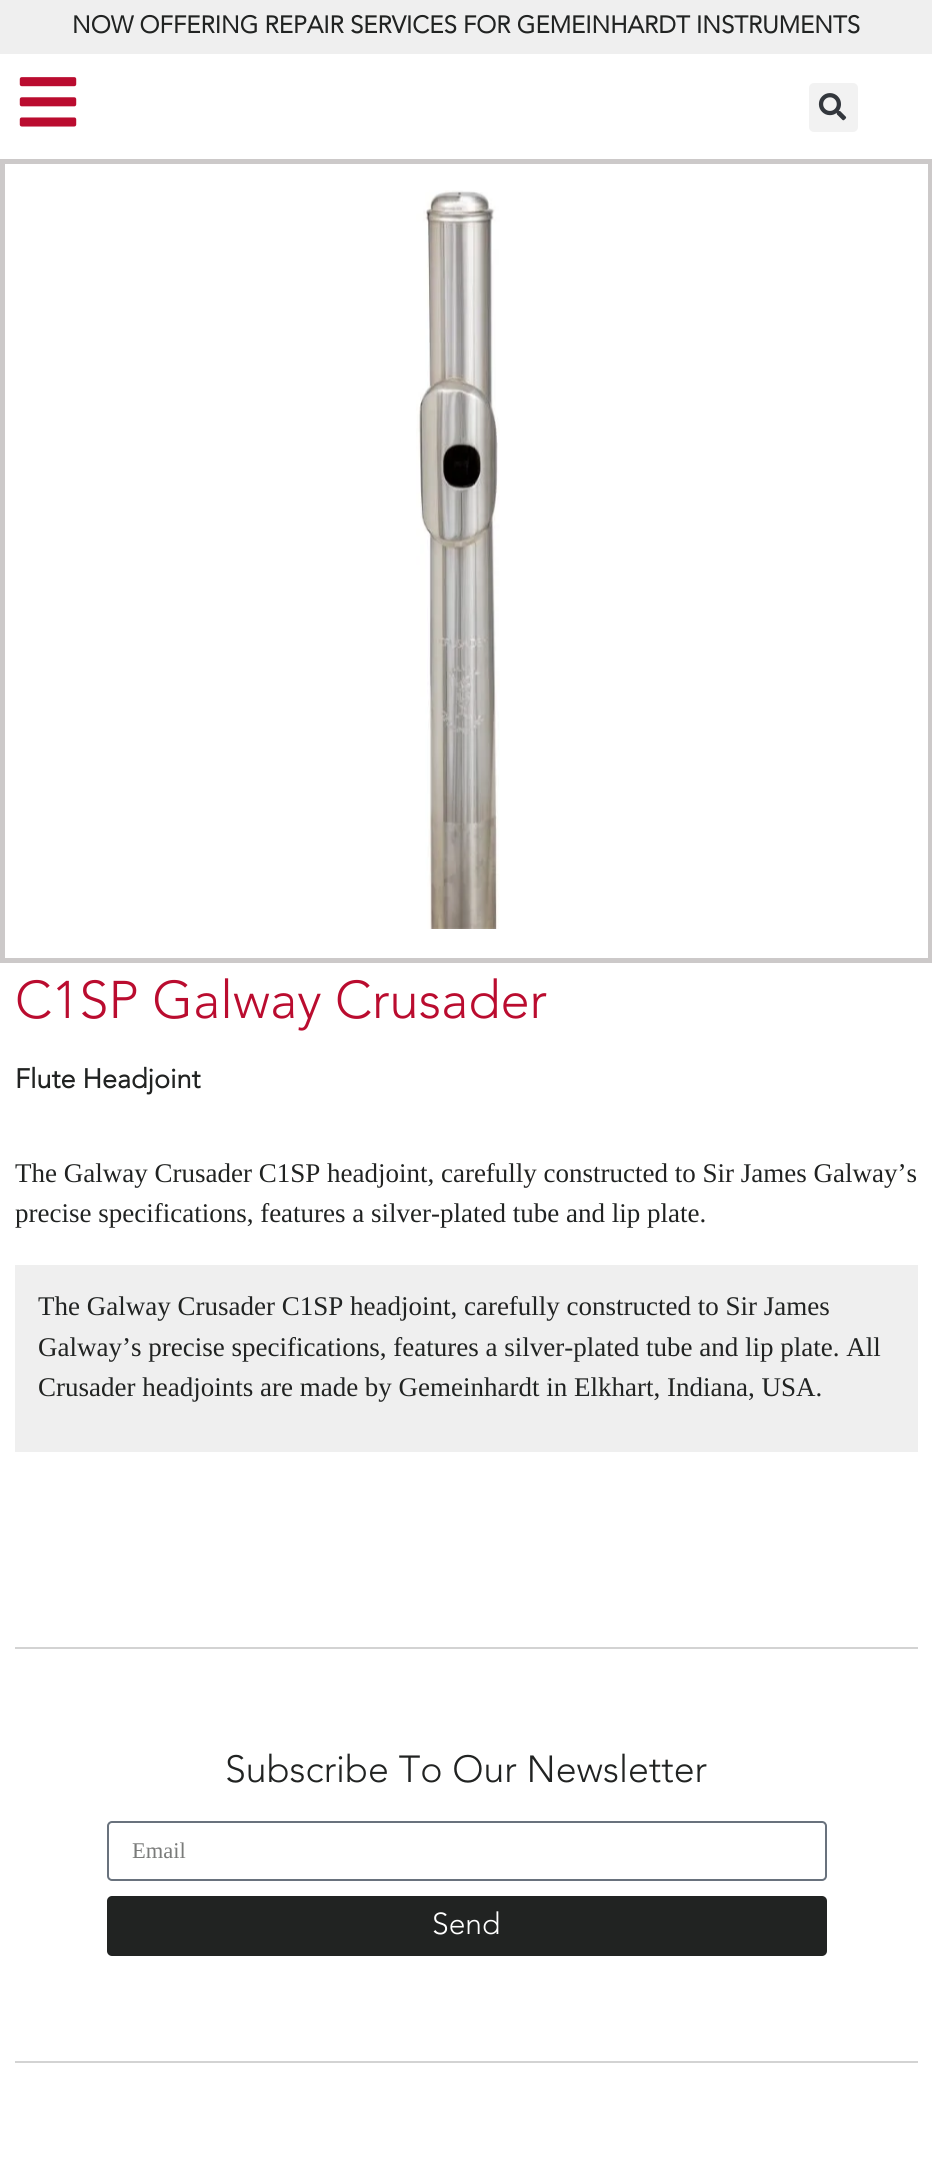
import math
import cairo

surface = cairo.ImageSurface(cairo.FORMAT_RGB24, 932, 2158)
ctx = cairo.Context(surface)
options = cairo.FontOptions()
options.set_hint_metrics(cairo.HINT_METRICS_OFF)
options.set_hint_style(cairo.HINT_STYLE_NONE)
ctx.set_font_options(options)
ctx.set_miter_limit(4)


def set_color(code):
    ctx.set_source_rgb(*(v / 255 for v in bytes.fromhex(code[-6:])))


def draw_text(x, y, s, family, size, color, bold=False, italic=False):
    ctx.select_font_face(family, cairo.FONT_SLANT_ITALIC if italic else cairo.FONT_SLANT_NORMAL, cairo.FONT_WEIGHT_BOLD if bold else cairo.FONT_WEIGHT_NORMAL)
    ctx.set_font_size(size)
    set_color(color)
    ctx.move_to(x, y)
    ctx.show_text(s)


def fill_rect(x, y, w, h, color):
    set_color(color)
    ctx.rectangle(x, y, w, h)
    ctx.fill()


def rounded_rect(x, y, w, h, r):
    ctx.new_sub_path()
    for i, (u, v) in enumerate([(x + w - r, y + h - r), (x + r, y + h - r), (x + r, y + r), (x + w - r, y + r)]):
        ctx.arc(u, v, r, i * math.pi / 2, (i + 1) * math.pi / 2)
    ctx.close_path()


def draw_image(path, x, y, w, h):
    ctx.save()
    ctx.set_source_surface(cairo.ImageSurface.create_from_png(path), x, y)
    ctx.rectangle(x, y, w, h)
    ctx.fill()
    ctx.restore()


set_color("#ffffff")
ctx.paint()
fill_rect(0, 0, 932, 54, "#efefef")
draw_text(72, 33, "NOW OFFERING REPAIR SERVICES FOR GEMEINHARDT INSTRUMENTS", "Avenir", 24, "#212322", bold=True)
draw_image("assets/img1.png", 19, 77, 58, 50)
set_color("#f2f2f2")
rounded_rect(809, 83, 49, 49, 5)
ctx.fill()
draw_image("assets/img2.png", 818, 93, 29, 28)
ctx.rectangle(2.5, 161.5, 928, 799)
set_color("#ccc9c9")
ctx.set_line_width(5)
ctx.stroke()
draw_image("assets/img3.png", 416, 190, 84, 739)
draw_text(15, 1018, "C1SP Galway Crusader", "Avenir Light", 52.5, "#ba0c2f")
draw_text(15, 1088, "Flute Headjoint", "Avenir", 27, "#212322", bold=True)
draw_text(15, 1182, "The Galway Crusader C1SP headjoint, carefully constructed to Sir James Galway’s", "Liberation Serif", 27, "#212322")
draw_text(15, 1222, "precise specifications, features a silver-plated tube and lip plate.", "Liberation Serif", 27, "#212322")
fill_rect(15, 1265, 903, 187, "#efefef")
draw_text(38, 1315, "The Galway Crusader C1SP headjoint, carefully constructed to Sir James", "Liberation Serif", 27, "#212322")
draw_text(38, 1356, "Galway’s precise specifications, features a silver-plated tube and lip plate. All", "Liberation Serif", 27, "#212322")
draw_text(38, 1396, "Crusader headjoints are made by Gemeinhardt in Elkhart, Indiana, USA.", "Liberation Serif", 27, "#212322")
fill_rect(15, 1647, 903, 2, "#d3d3d3")
draw_text(225, 1782, "Subscribe To Our Newsletter", "Avenir Light", 37.5, "#212322")
rounded_rect(108, 1822, 718, 58, 4)
set_color("#69727d")
ctx.set_line_width(2)
ctx.stroke()
draw_text(132, 1858, "Email", "Liberation Serif", 22.5, "#7a7b7a")
set_color("#212322")
rounded_rect(107, 1896, 720, 60, 5)
ctx.fill()
draw_text(432, 1934, "Send", "Avenir Light", 30, "#ffffff")
fill_rect(15, 2061, 903, 2, "#d3d3d3")
surface.write_to_png("output.png")
